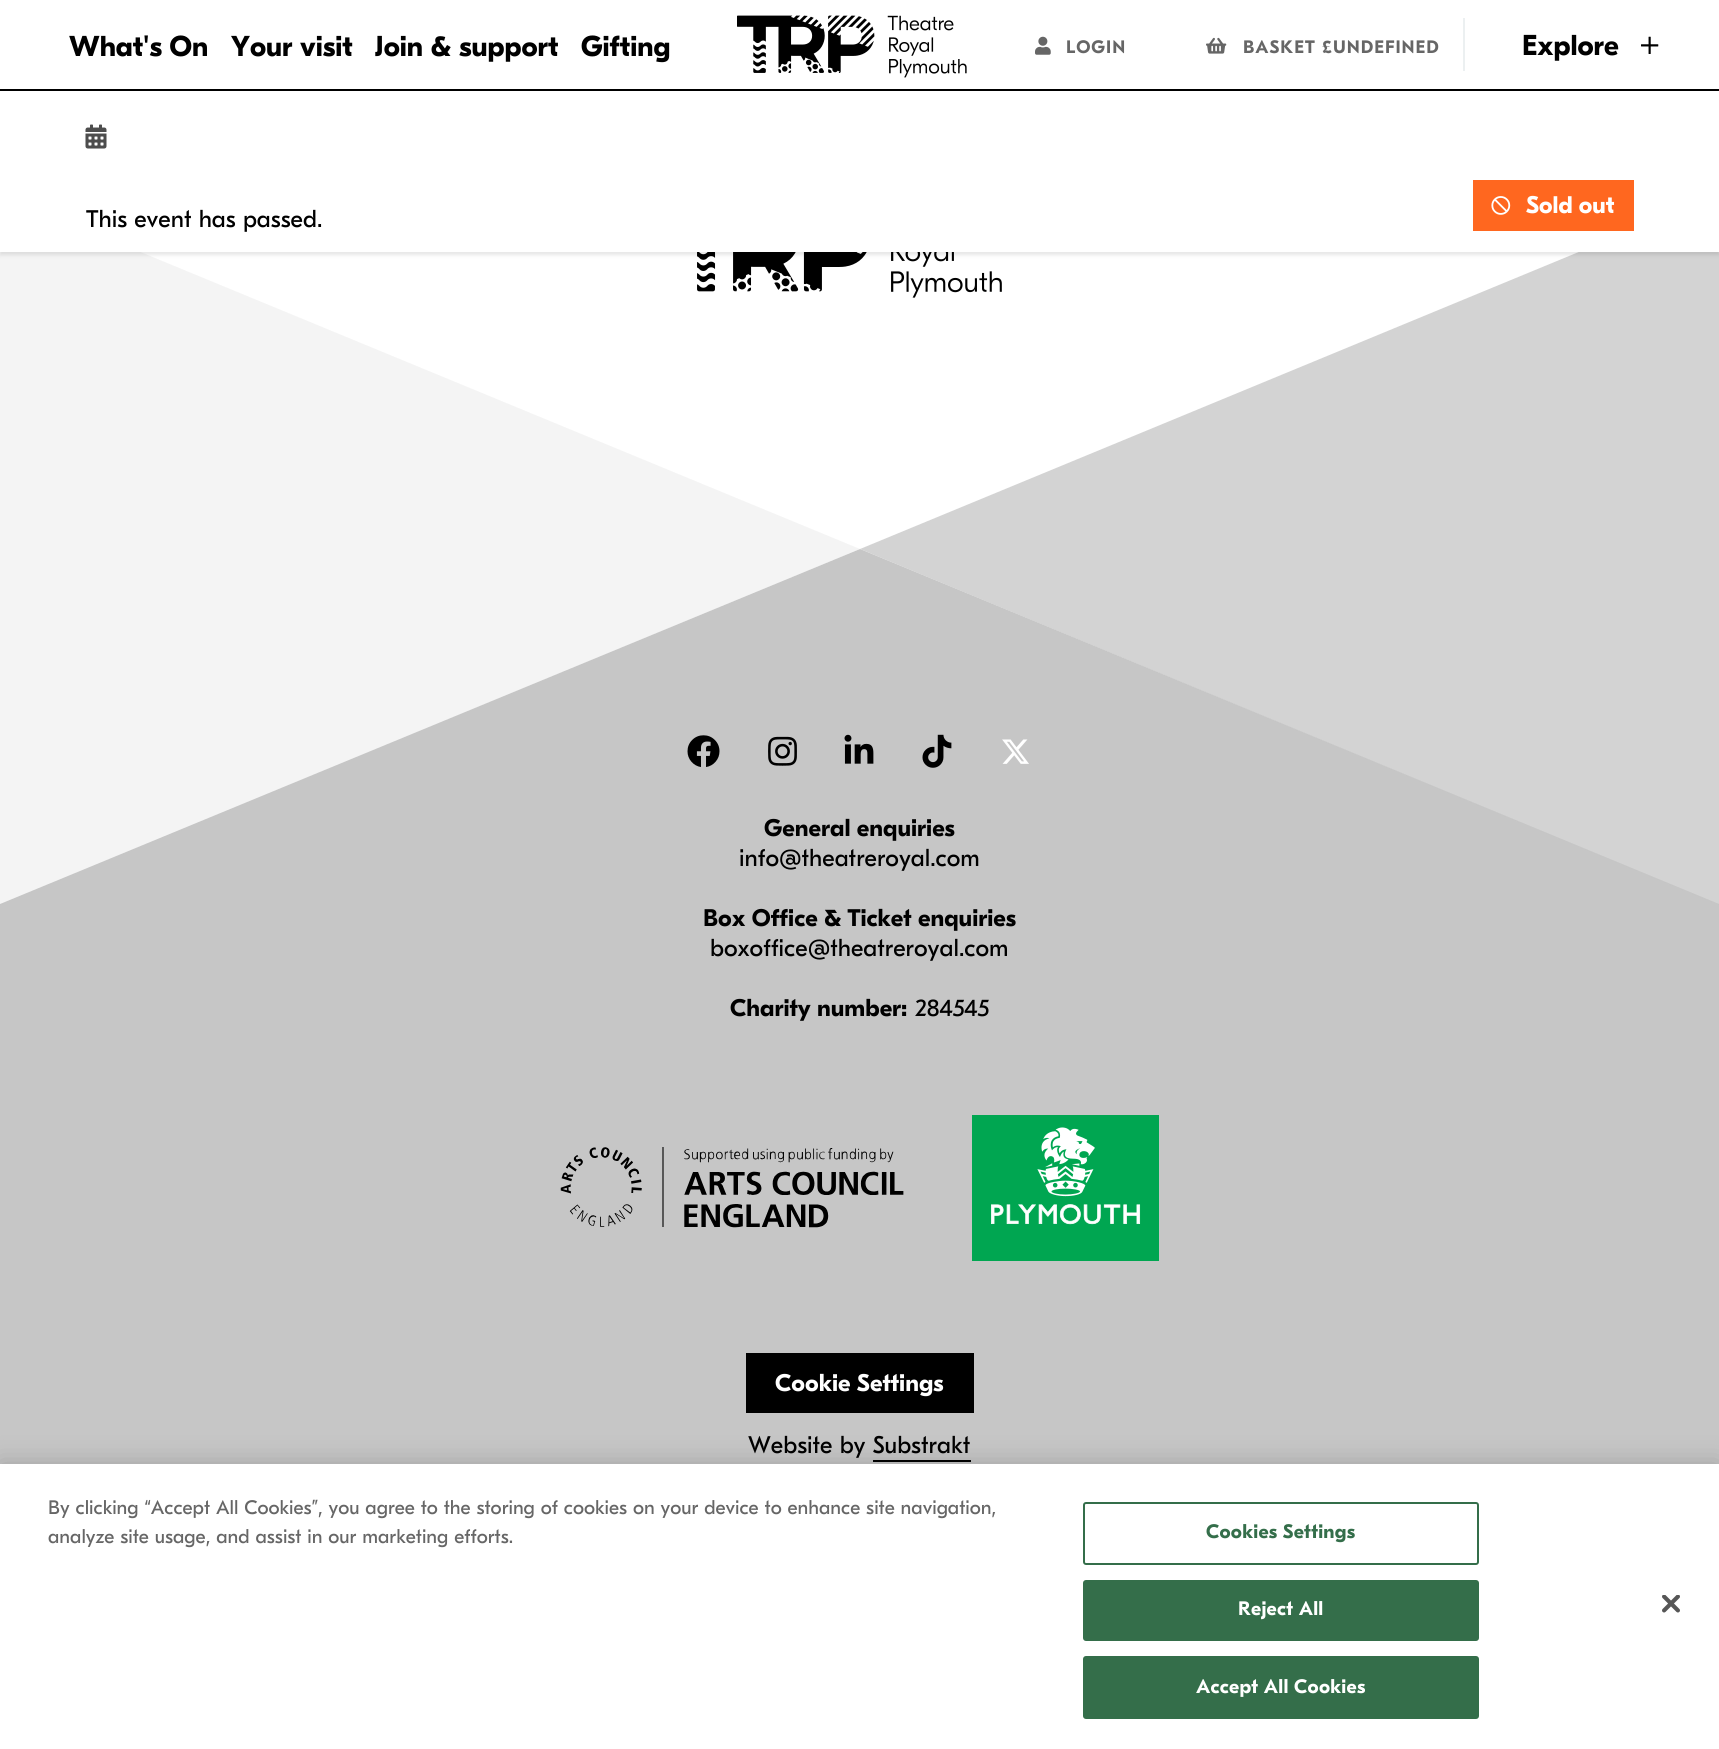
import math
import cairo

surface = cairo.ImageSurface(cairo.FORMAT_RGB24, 1719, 1749)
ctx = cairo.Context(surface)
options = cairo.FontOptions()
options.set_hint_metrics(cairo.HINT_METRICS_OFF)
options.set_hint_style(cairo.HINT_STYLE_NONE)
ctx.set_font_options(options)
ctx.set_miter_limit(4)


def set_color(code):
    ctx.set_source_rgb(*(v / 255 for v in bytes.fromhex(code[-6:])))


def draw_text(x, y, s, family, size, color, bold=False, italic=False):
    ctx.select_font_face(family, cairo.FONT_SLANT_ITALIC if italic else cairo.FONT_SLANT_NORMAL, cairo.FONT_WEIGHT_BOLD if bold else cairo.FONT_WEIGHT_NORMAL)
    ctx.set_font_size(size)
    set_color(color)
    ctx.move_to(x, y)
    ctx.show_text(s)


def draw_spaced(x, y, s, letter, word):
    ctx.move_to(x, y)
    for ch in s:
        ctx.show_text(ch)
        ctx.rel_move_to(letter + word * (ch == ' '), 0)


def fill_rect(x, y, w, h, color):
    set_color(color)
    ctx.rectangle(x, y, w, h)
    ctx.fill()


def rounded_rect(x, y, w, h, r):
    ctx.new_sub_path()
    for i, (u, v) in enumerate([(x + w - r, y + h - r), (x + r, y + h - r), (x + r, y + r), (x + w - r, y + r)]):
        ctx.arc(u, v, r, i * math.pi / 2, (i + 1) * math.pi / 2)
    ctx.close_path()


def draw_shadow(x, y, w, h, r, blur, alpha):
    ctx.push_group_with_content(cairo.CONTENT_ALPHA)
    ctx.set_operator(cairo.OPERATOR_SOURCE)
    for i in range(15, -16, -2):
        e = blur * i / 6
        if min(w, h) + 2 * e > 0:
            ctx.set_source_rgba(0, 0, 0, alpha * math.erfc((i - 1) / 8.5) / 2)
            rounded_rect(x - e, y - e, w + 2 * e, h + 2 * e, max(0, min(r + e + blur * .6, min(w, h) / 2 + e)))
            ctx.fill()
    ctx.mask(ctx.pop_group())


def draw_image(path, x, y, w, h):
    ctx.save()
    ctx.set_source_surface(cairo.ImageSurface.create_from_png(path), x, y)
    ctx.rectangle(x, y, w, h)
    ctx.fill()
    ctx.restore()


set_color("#ffffff")
ctx.paint()
set_color("#c6c6c6")
ctx.set_fill_rule(cairo.FILL_RULE_EVEN_ODD)
ctx.new_path()
ctx.move_to(0, 904)
ctx.line_to(0, 1195)
ctx.line_to(1719, 1195)
ctx.line_to(1719, 904)
ctx.line_to(860, 549)
ctx.close_path()
ctx.fill()
ctx.set_source_rgba(0.776, 0.776, 0.776, 0.76)
ctx.new_path()
ctx.move_to(1719, 194)
ctx.line_to(860, 549)
ctx.line_to(1719, 905)
ctx.close_path()
ctx.fill()
ctx.set_source_rgba(0.776, 0.776, 0.776, 0.19)
ctx.new_path()
ctx.move_to(0, 905)
ctx.line_to(860, 549)
ctx.line_to(0, 194)
ctx.close_path()
ctx.fill()
draw_image("assets/img7.png", 697, 252, 305, 46)
set_color("#000000")
draw_shadow(0, 93, 1719, 162, 0, 2, 0.1)
fill_rect(0, 89, 1719, 2, "#000000")
draw_text(69, 56, "What's On", "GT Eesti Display", 28.75, "#000000", bold=True)
draw_text(231, 56, "Your visit", "GT Eesti Display", 28.75, "#000000", bold=True)
draw_text(375, 56, "Join & support", "GT Eesti Display", 28.75, "#000000", bold=True)
draw_text(581, 56, "Gifting", "GT Eesti Display", 28.75, "#000000", bold=True)
draw_image("assets/img1.png", 737, 15, 230, 63)
draw_image("assets/img2.png", 1035, 36, 16, 19)
ctx.select_font_face("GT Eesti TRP", cairo.FONT_SLANT_NORMAL, cairo.FONT_WEIGHT_BOLD)
ctx.set_font_size(18)
set_color("#666666")
draw_spaced(1066, 53, "LOGIN", 1, 0)
draw_image("assets/img3.png", 1206, 37, 21, 17)
draw_spaced(1243, 53, "BASKET", 1, 0)
draw_spaced(1322, 53, "£UNDEFINED", 1, 0)
fill_rect(1463, 18, 2, 53, "#ecf0f1")
draw_text(1522, 55, "Explore", "GT Eesti Display", 28.75, "#000000", bold=True)
draw_image("assets/img4.png", 1641, 36, 18, 18)
fill_rect(0, 91, 1719, 161, "#ffffff")
draw_image("assets/img5.png", 85, 124, 22, 25)
fill_rect(1473, 180, 161, 51, "#ff671f")
draw_image("assets/img6.png", 1491, 196, 20, 19)
draw_text(1526, 213, "Sold out", "GT Eesti Display", 24, "#ffffff", bold=True)
draw_text(86, 227, "This event has passed.", "GT Eesti TRP", 24, "#000000")
fill_rect(0, 1195, 1719, 269, "#c6c6c6")
draw_image("assets/img8.png", 687, 735, 33, 32)
draw_image("assets/img9.png", 768, 736, 29, 30)
draw_image("assets/img10.png", 844, 734, 30, 30)
draw_image("assets/img11.png", 922, 734, 30, 34)
draw_image("assets/img12.png", 1002, 739, 27, 25)
draw_text(764, 836, "General enquiries", "GT Eesti TRP", 24, "#000000", bold=True)
draw_text(739, 866, "info@theatreroyal.com", "GT Eesti TRP", 24, "#000000")
draw_text(703, 926, "Box Office & Ticket enquiries", "GT Eesti TRP", 24, "#000000", bold=True)
draw_text(710, 956, "boxoffice@theatreroyal.com", "GT Eesti TRP", 24, "#000000")
draw_text(730, 1016, "Charity number:", "GT Eesti TRP", 24, "#000000", bold=True)
draw_text(915, 1016, "284545", "GT Eesti TRP", 24, "#000000")
draw_image("assets/img13.png", 560, 1147, 344, 81)
draw_image("assets/img14.png", 972, 1115, 187, 146)
fill_rect(746, 1353, 228, 60, "#000000")
draw_text(775, 1391, "Cookie Settings", "GT Eesti TRP", 24, "#ffffff", bold=True)
draw_text(748, 1453, "Website by Substrakt", "GT Eesti TRP", 24, "#000000")
fill_rect(873, 1460, 98, 2, "#000000")
set_color("#000000")
draw_shadow(0, 1464, 1719, 285, 0, 13.5, 0.2)
fill_rect(0, 1464, 1719, 285, "#ffffff")
draw_text(48, 1514, "By clicking “Accept All Cookies”, you agree to the storing of cookies on your device to enhance site navigation,", "GT Eesti TRP", 19.5, "#666666")
draw_text(48, 1543, "analyze site usage, and assist in our marketing efforts.", "GT Eesti TRP", 19.5, "#666666")
rounded_rect(1084, 1503, 394, 61, 2)
set_color("#346e4a")
ctx.stroke()
ctx.select_font_face("GT Eesti TRP", cairo.FONT_SLANT_NORMAL, cairo.FONT_WEIGHT_BOLD)
draw_spaced(1206, 1538, "Cookies Settings", 0.25, 0)
rounded_rect(1084, 1581, 394, 59, 2)
ctx.fill_preserve()
ctx.stroke()
set_color("#ffffff")
draw_spaced(1238, 1615, "Reject All", 0.25, 0)
set_color("#346e4a")
rounded_rect(1084, 1657, 394, 61, 2)
ctx.fill_preserve()
ctx.stroke()
set_color("#ffffff")
draw_spaced(1196, 1693, "Accept All Cookies", 0.25, 0)
draw_image("assets/img15.png", 1662, 1595, 18, 18)
surface.write_to_png("output.png")
